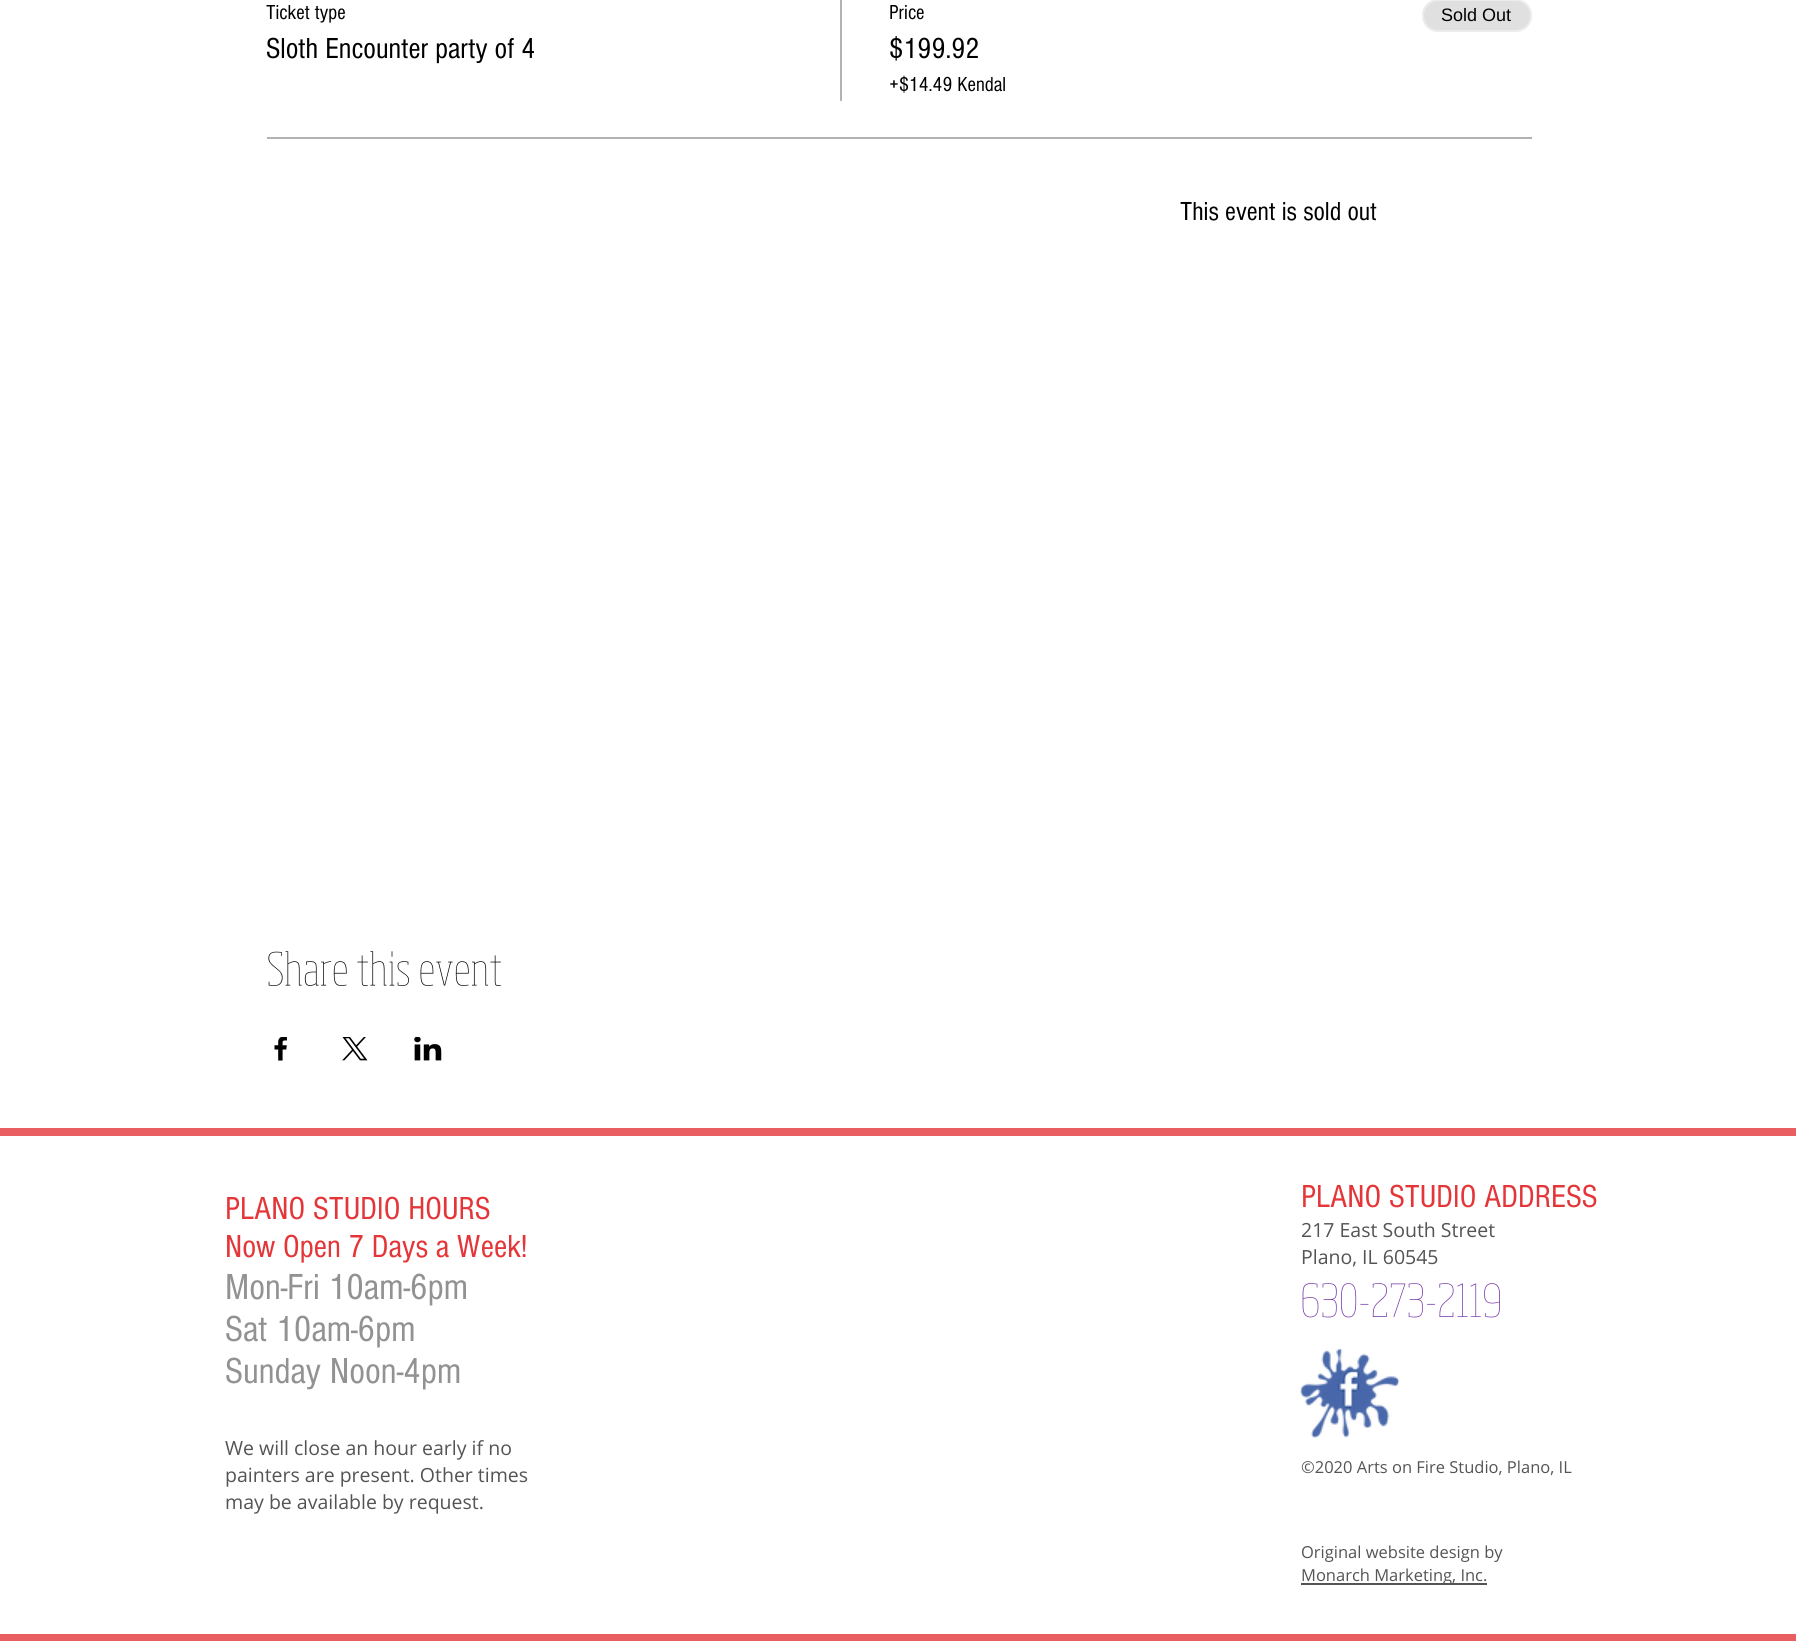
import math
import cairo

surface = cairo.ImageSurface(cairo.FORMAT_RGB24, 1796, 1641)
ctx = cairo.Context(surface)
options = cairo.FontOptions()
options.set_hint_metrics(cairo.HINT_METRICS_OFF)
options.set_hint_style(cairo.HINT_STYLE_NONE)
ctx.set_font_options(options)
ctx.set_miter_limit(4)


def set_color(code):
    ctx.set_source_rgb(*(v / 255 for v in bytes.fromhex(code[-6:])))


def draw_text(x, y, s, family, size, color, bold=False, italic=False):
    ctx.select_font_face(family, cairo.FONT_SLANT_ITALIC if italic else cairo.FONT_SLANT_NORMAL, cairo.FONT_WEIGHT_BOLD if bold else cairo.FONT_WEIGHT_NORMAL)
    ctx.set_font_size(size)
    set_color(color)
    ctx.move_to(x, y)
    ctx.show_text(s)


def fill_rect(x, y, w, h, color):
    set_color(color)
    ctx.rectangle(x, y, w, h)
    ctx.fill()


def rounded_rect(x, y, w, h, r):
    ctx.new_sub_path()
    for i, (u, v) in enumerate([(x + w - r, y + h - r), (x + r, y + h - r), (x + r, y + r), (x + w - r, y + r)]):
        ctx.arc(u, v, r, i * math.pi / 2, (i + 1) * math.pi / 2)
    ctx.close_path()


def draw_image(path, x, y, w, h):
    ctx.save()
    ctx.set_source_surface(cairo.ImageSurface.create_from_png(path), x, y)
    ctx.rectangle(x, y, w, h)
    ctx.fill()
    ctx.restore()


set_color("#ffffff")
ctx.paint()
fill_rect(267, 137, 1265, 2, "#b3b3b3")
draw_text(266, 19, "Ticket type", "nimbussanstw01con", 21, "#000000")
draw_text(266, 58, "Sloth Encounter party of 4", "nimbussanstw01con", 30, "#000000")
fill_rect(840, 0, 2, 101, "#b3b3b3")
draw_text(889, 19, "Price", "nimbussanstw01con", 21, "#000000")
draw_text(889, 58, "$199.92", "nimbussanstw01con", 30, "#000000")
draw_text(889, 91, "+$14.49 Kendal", "nimbussanstw01con", 21, "#000000")
set_color("#e0e0e0")
rounded_rect(1422, -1, 110, 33, 16.5)
ctx.fill()
rounded_rect(1423, 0, 108, 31, 15.5)
ctx.set_source_rgba(1, 1, 1, 0.4)
ctx.stroke()
draw_text(1441, 21, "Sold Out", "Liberation Sans", 18, "#000000")
draw_text(1180, 220, "This event is sold out", "nimbussanstw01con", 27, "#000000")
draw_image("assets/img1.png", 268, 951, 233, 35)
draw_image("assets/img2.png", 274, 1037, 13, 24)
draw_image("assets/img3.png", 342, 1037, 26, 24)
draw_image("assets/img4.png", 414, 1037, 28, 24)
fill_rect(0, 1128, 1796, 8, "#e95e60")
fill_rect(0, 1634, 1796, 7, "#e95e60")
draw_text(225, 1219, "PLANO STUDIO HOURS", "nimbussanstw01con", 33, "#e43638")
draw_text(225, 1257, "Now Open 7 Days a Week!", "nimbussanstw01con", 33, "#e43638")
draw_text(225, 1299, "Mon-Fri 10am-6pm", "nimbussanstw01con", 37.5, "#929292")
draw_text(225, 1341, "Sat 10am-6pm", "nimbussanstw01con", 37.5, "#929292")
draw_text(225, 1383, "Sunday Noon-4pm", "nimbussanstw01con", 37.5, "#929292")
draw_text(225, 1455, "We will close an hour early if no", "Open Sans", 19.5, "#545454")
draw_text(225, 1482, "painters are present. Other times", "Open Sans", 19.5, "#545454")
draw_text(225, 1509, "may be available by request.", "Open Sans", 19.5, "#545454")
draw_text(1301, 1207, "PLANO STUDIO ADDRESS", "nimbussanstw01con", 33, "#e43638")
draw_text(1301, 1237, "217 East South Street", "Open Sans", 19.5, "#545454")
draw_text(1301, 1264, "Plano, IL 60545", "Open Sans", 19.5, "#545454")
draw_image("assets/img5.png", 1302, 1283, 198, 35)
draw_image("assets/img6.png", 1300, 1348, 100, 90)
draw_text(1301, 1473, "©2020 Arts on Fire Studio, Plano, IL", "Open Sans", 16.5, "#545454")
draw_text(1301, 1558, "Original website design by", "Open Sans", 16.5, "#545454")
fill_rect(1301, 1583, 186, 2, "#545454")
draw_text(1301, 1581, "Monarch Marketing, Inc.", "Open Sans", 16.5, "#545454")
surface.write_to_png("output.png")
